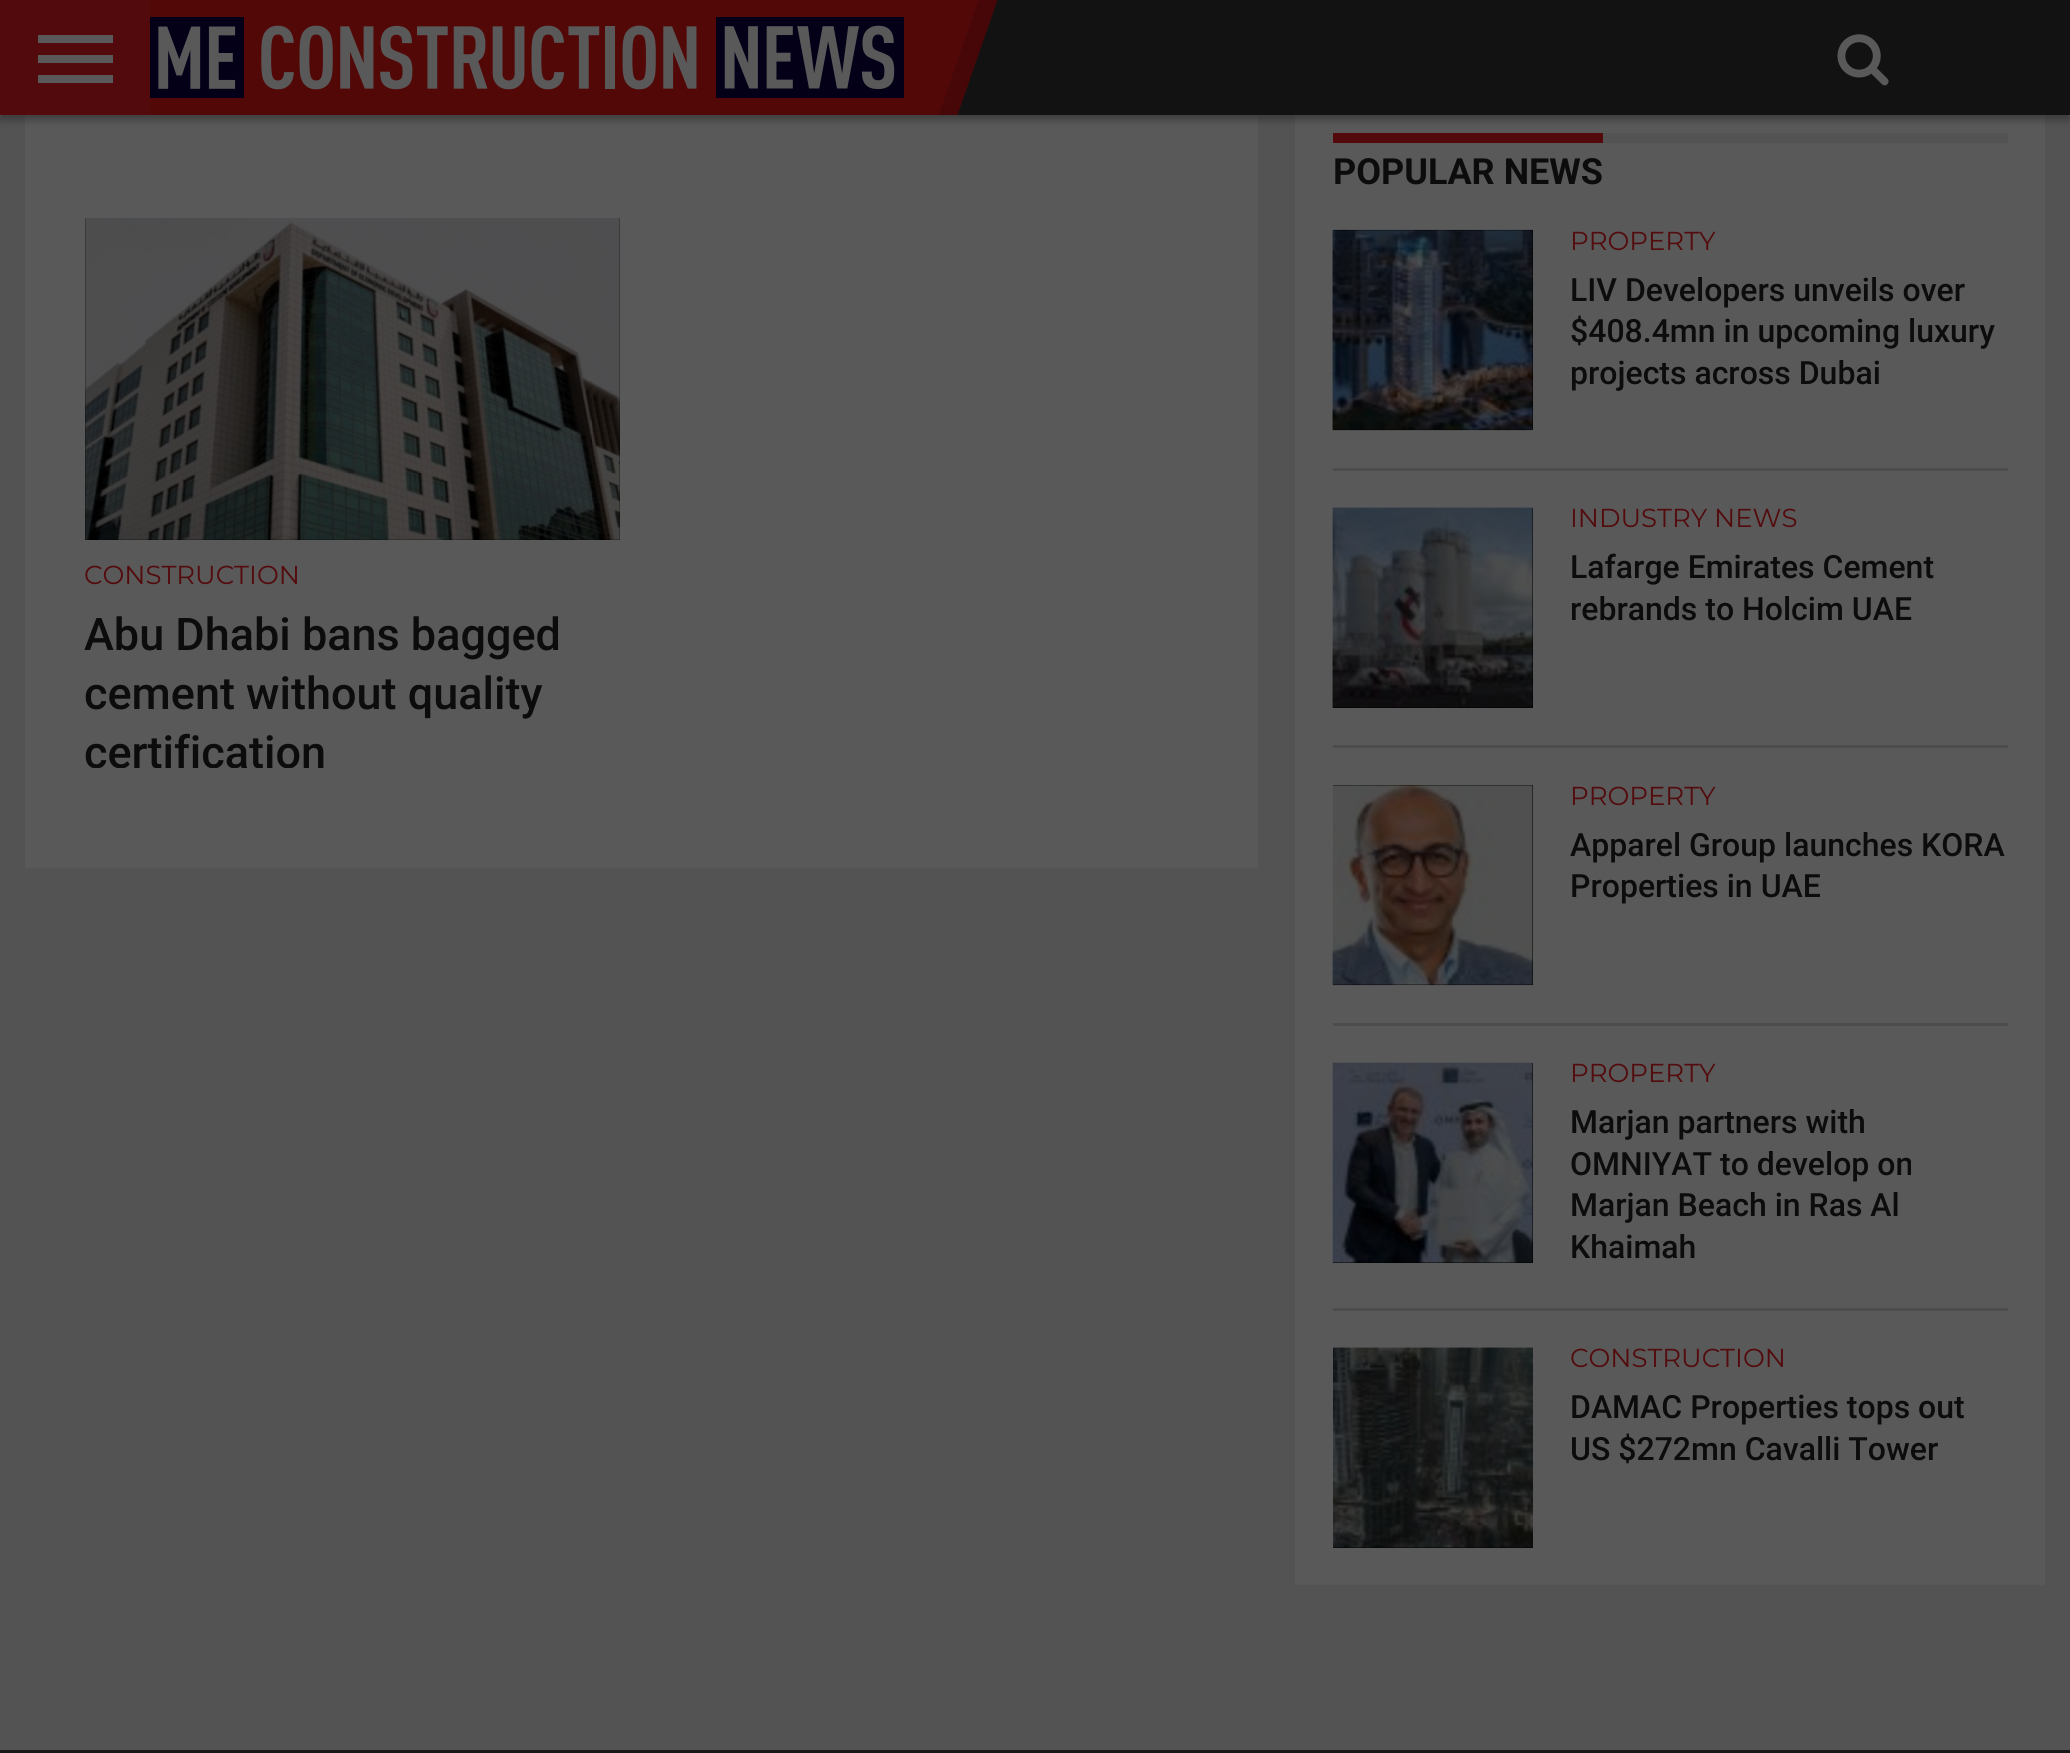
import math
import cairo

surface = cairo.ImageSurface(cairo.FORMAT_RGB24, 2070, 1753)
ctx = cairo.Context(surface)
options = cairo.FontOptions()
options.set_hint_metrics(cairo.HINT_METRICS_OFF)
options.set_hint_style(cairo.HINT_STYLE_NONE)
ctx.set_font_options(options)
ctx.set_miter_limit(4)


def set_color(code):
    ctx.set_source_rgb(*(v / 255 for v in bytes.fromhex(code[-6:])))


def draw_text(x, y, s, family, size, color, bold=False, italic=False):
    ctx.select_font_face(family, cairo.FONT_SLANT_ITALIC if italic else cairo.FONT_SLANT_NORMAL, cairo.FONT_WEIGHT_BOLD if bold else cairo.FONT_WEIGHT_NORMAL)
    ctx.set_font_size(size)
    set_color(color)
    ctx.move_to(x, y)
    ctx.show_text(s)


def fill_rect(x, y, w, h, color):
    set_color(color)
    ctx.rectangle(x, y, w, h)
    ctx.fill()


def rounded_rect(x, y, w, h, r):
    ctx.new_sub_path()
    for i, (u, v) in enumerate([(x + w - r, y + h - r), (x + r, y + h - r), (x + r, y + r), (x + w - r, y + r)]):
        ctx.arc(u, v, r, i * math.pi / 2, (i + 1) * math.pi / 2)
    ctx.close_path()


def draw_shadow(x, y, w, h, r, blur, alpha):
    ctx.push_group_with_content(cairo.CONTENT_ALPHA)
    ctx.set_operator(cairo.OPERATOR_SOURCE)
    for i in range(15, -16, -2):
        e = blur * i / 6
        if min(w, h) + 2 * e > 0:
            ctx.set_source_rgba(0, 0, 0, alpha * math.erfc((i - 1) / 8.5) / 2)
            rounded_rect(x - e, y - e, w + 2 * e, h + 2 * e, max(0, min(r + e + blur * .6, min(w, h) / 2 + e)))
            ctx.fill()
    ctx.mask(ctx.pop_group())


def draw_image(path, x, y, w, h):
    ctx.save()
    ctx.set_source_surface(cairo.ImageSurface.create_from_png(path), x, y)
    ctx.rectangle(x, y, w, h)
    ctx.fill()
    ctx.restore()


set_color("#535353")
ctx.paint()
fill_rect(25, 115, 1233, 753, "#595959")
fill_rect(1295, 115, 750, 1470, "#595959")
set_color("#000000")
draw_shadow(0, 5, 2070, 115, 0, 4, 0.3)
fill_rect(957, 0, 1113, 115, "#121212")
fill_rect(0, 0, 150, 115, "#530a0c")
fill_rect(38, 35, 75, 8, "#595959")
fill_rect(38, 55, 75, 8, "#595959")
fill_rect(38, 75, 75, 8, "#595959")
draw_image("assets/img1.png", 150, 0, 848, 115)
draw_image("assets/img2.png", 1837, 34, 52, 52)
fill_rect(85, 218, 535, 322, "#000000")
draw_image("assets/img3.png", 85, 218, 535, 322)
draw_text(84, 584, "CONSTRUCTION", "Montserrat", 26, "#530b0d")
draw_text(84, 650, "Abu Dhabi bans bagged", "Roboto Medium", 45, "#0c0c0c")
draw_text(84, 709, "cement without quality", "Roboto Medium", 45, "#0c0c0c")
ctx.save()
ctx.rectangle(85, 218, 535, 550)
ctx.clip()
draw_text(84, 768, "certification", "Roboto Medium", 45, "#0c0c0c")
ctx.restore()
fill_rect(1603, 133, 405, 10, "#535353")
fill_rect(1333, 133, 270, 10, "#530a0c")
draw_text(1333, 184, "POPULAR NEWS", "Roboto", 36, "#0c0c0c", bold=True)
fill_rect(1333, 230, 200, 200, "#000000")
draw_image("assets/img4.png", 1332, 229, 201, 202)
draw_text(1570, 250, "PROPERTY", "Montserrat", 26, "#530b0d")
draw_text(1570, 301, "LIV Developers unveils over", "Roboto Medium", 32, "#0c0c0c")
draw_text(1570, 342, "$408.4mn in upcoming luxury", "Roboto Medium", 32, "#0c0c0c")
draw_text(1570, 384, "projects across Dubai", "Roboto Medium", 32, "#0c0c0c")
fill_rect(1333, 468, 675, 3, "#4d4d4d")
fill_rect(1333, 508, 200, 200, "#000000")
draw_image("assets/img5.png", 1332, 507, 201, 201)
draw_text(1570, 527, "INDUSTRY NEWS", "Montserrat", 26, "#530b0d")
draw_text(1570, 578, "Lafarge Emirates Cement", "Roboto Medium", 32, "#0c0c0c")
draw_text(1570, 620, "rebrands to Holcim UAE", "Roboto Medium", 32, "#0c0c0c")
fill_rect(1333, 745, 675, 3, "#4d4d4d")
fill_rect(1333, 785, 200, 200, "#000000")
draw_image("assets/img6.png", 1332, 784, 201, 202)
draw_text(1570, 805, "PROPERTY", "Montserrat", 26, "#530b0d")
draw_text(1570, 856, "Apparel Group launches KORA", "Roboto Medium", 32, "#0c0c0c")
draw_text(1570, 897, "Properties in UAE", "Roboto Medium", 32, "#0c0c0c")
fill_rect(1333, 1023, 675, 3, "#4d4d4d")
fill_rect(1333, 1063, 200, 200, "#000000")
draw_image("assets/img7.png", 1332, 1062, 201, 201)
draw_text(1570, 1082, "PROPERTY", "Montserrat", 26, "#530b0d")
draw_text(1570, 1133, "Marjan partners with", "Roboto Medium", 32, "#0c0c0c")
draw_text(1570, 1175, "OMNIYAT to develop on", "Roboto Medium", 32, "#0c0c0c")
draw_text(1570, 1216, "Marjan Beach in Ras Al", "Roboto Medium", 32, "#0c0c0c")
draw_text(1570, 1258, "Khaimah", "Roboto Medium", 32, "#0c0c0c")
fill_rect(1333, 1308, 675, 3, "#4d4d4d")
fill_rect(1333, 1348, 200, 200, "#000000")
draw_image("assets/img8.png", 1333, 1347, 200, 201)
draw_text(1570, 1367, "CONSTRUCTION", "Montserrat", 26, "#530b0d")
draw_text(1570, 1418, "DAMAC Properties tops out", "Roboto Medium", 32, "#0c0c0c")
draw_text(1570, 1460, "US $272mn Cavalli Tower", "Roboto Medium", 32, "#0c0c0c")
fill_rect(0, 1750, 2070, 3, "#181818")
surface.write_to_png("output.png")
